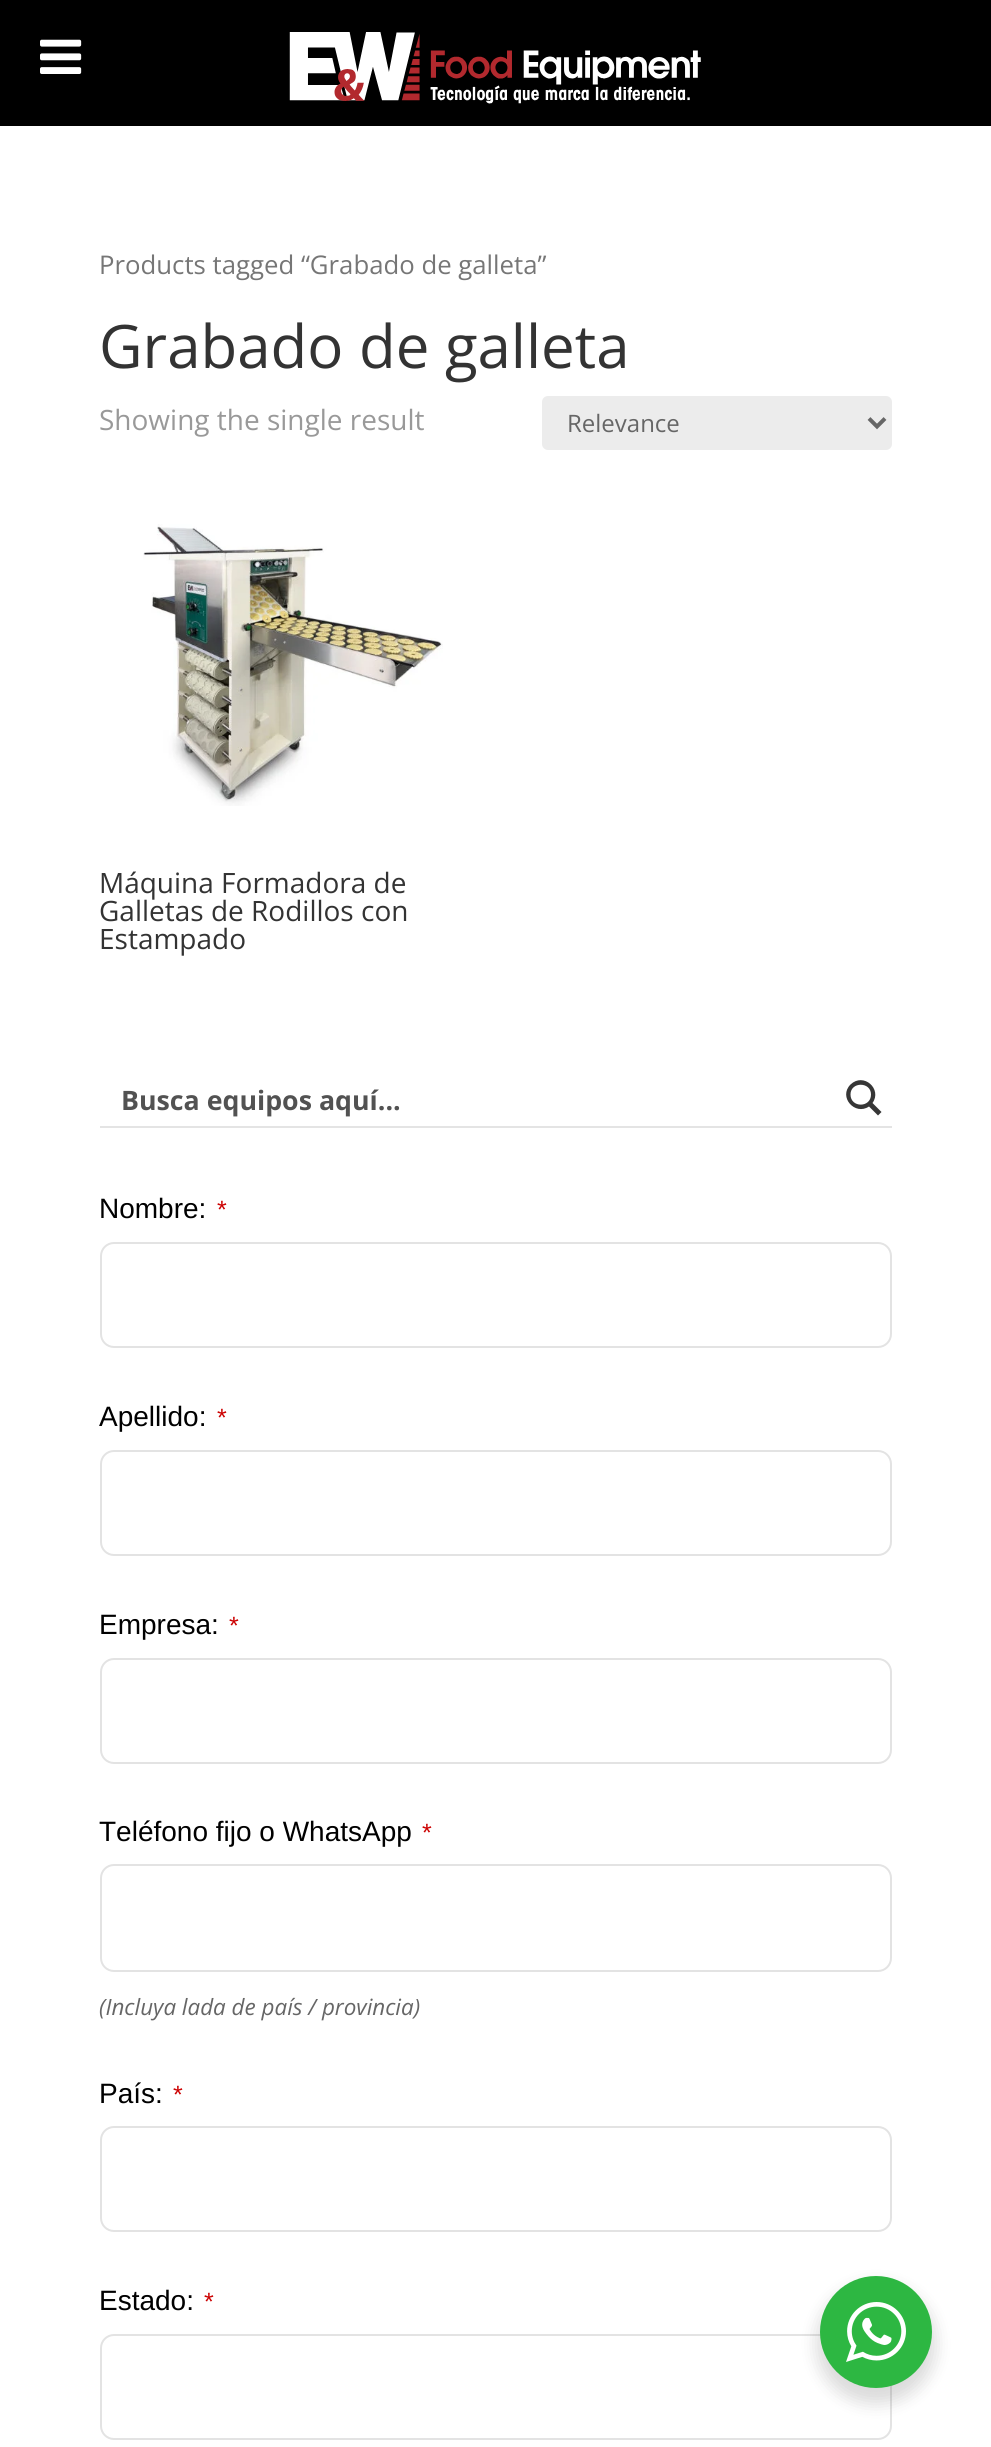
import math
import cairo

surface = cairo.ImageSurface(cairo.FORMAT_RGB24, 991, 2447)
ctx = cairo.Context(surface)
options = cairo.FontOptions()
options.set_hint_metrics(cairo.HINT_METRICS_OFF)
options.set_hint_style(cairo.HINT_STYLE_NONE)
ctx.set_font_options(options)
ctx.set_miter_limit(4)


def set_color(code):
    ctx.set_source_rgb(*(v / 255 for v in bytes.fromhex(code[-6:])))


def draw_text(x, y, s, family, size, color, bold=False, italic=False):
    ctx.select_font_face(family, cairo.FONT_SLANT_ITALIC if italic else cairo.FONT_SLANT_NORMAL, cairo.FONT_WEIGHT_BOLD if bold else cairo.FONT_WEIGHT_NORMAL)
    ctx.set_font_size(size)
    set_color(color)
    ctx.move_to(x, y)
    ctx.show_text(s)


def fill_rect(x, y, w, h, color):
    set_color(color)
    ctx.rectangle(x, y, w, h)
    ctx.fill()


def rounded_rect(x, y, w, h, r):
    ctx.new_sub_path()
    for i, (u, v) in enumerate([(x + w - r, y + h - r), (x + r, y + h - r), (x + r, y + r), (x + w - r, y + r)]):
        ctx.arc(u, v, r, i * math.pi / 2, (i + 1) * math.pi / 2)
    ctx.close_path()


def draw_shadow(x, y, w, h, r, blur, alpha):
    ctx.push_group_with_content(cairo.CONTENT_ALPHA)
    ctx.set_operator(cairo.OPERATOR_SOURCE)
    for i in range(15, -16, -2):
        e = blur * i / 6
        if min(w, h) + 2 * e > 0:
            ctx.set_source_rgba(0, 0, 0, alpha * math.erfc((i - 1) / 8.5) / 2)
            rounded_rect(x - e, y - e, w + 2 * e, h + 2 * e, max(0, min(r + e + blur * .6, min(w, h) / 2 + e)))
            ctx.fill()
    ctx.mask(ctx.pop_group())


def draw_image(path, x, y, w, h):
    ctx.save()
    ctx.set_source_surface(cairo.ImageSurface.create_from_png(path), x, y)
    ctx.rectangle(x, y, w, h)
    ctx.fill()
    ctx.restore()


set_color("#ffffff")
ctx.paint()
fill_rect(0, 0, 991, 126, "#000000")
draw_image("assets/img1.png", 40, 39, 42, 35)
draw_image("assets/img2.png", 289, 32, 412, 72)
draw_text(99, 274, "Products tagged “Grabado de galleta”", "Open Sans", 25.75, "#767676")
draw_text(99, 368, "Grabado de galleta", "Open Sans", 60, "#333333")
draw_text(99, 430, "Showing the single result", "Open Sans", 28, "#999999")
set_color("#ececec")
rounded_rect(542, 396, 350, 54, 6)
ctx.fill()
ctx.new_path()
ctx.move_to(869, 418.5)
ctx.line_to(877, 426.5)
ctx.line_to(885, 418.5)
set_color("#666666")
ctx.set_line_width(4)
ctx.stroke()
draw_text(567, 432, "Relevance", "Open Sans", 24, "#666666")
draw_image("assets/img3.png", 143, 524, 300, 282)
draw_text(99, 893, "Máquina Formadora de", "Open Sans", 28, "#333333")
draw_text(99, 921, "Galletas de Rodillos con", "Open Sans", 28, "#333333")
draw_text(99, 949, "Estampado", "Open Sans", 28, "#333333")
fill_rect(100, 1126, 792, 2, "#e4e4e4")
draw_text(121, 1110, "Busca equipos aquí...", "Open Sans", 26.75, "#525252", bold=True)
set_color("#363636")
ctx.new_path()
ctx.move_to(881.5, 1112)
ctx.line_to(872.5, 1103)
ctx.curve_to(882.5, 1089, 863.5, 1072, 850.5, 1084.5)
ctx.curve_to(838, 1097, 855, 1116, 869, 1106.5)
ctx.line_to(878, 1115.5)
ctx.close_path()
ctx.move_to(850.5, 1094.5)
ctx.curve_to(850.5, 1081.5, 871, 1081.5, 871, 1094.5)
ctx.curve_to(871, 1108, 850.5, 1108, 850.5, 1094.5)
ctx.close_path()
ctx.fill()
draw_text(99, 1218, "Nombre:", "Liberation Sans", 28, "#000000")
draw_text(217, 1218, "*", "Liberation Sans", 25, "#cc0101")
rounded_rect(101, 1243, 790, 104, 13)
set_color("#e3e3e3")
ctx.set_line_width(2)
ctx.stroke()
draw_text(99, 1426, "Apellido:", "Liberation Sans", 28, "#000000")
draw_text(217, 1426, "*", "Liberation Sans", 25, "#cc0101")
rounded_rect(101, 1451, 790, 104, 13)
set_color("#e3e3e3")
ctx.stroke()
draw_text(99, 1634, "Empresa:", "Liberation Sans", 28, "#000000")
draw_text(229, 1634, "*", "Liberation Sans", 25, "#cc0101")
rounded_rect(101, 1659, 790, 104, 13)
set_color("#e3e3e3")
ctx.stroke()
draw_text(99, 1841, "Teléfono fijo o WhatsApp", "Liberation Sans", 28, "#000000")
draw_text(422, 1841, "*", "Liberation Sans", 25, "#cc0101")
rounded_rect(101, 1865, 790, 106, 13)
set_color("#e3e3e3")
ctx.stroke()
draw_text(99, 2015, "(Incluya lada de país / provincia)", "Open Sans", 22.4, "#666666", italic=True)
draw_text(99, 2103, "País:", "Liberation Sans", 28, "#000000")
draw_text(173, 2103, "*", "Liberation Sans", 25, "#cc0101")
rounded_rect(101, 2127, 790, 104, 13)
set_color("#e3e3e3")
ctx.stroke()
draw_text(99, 2310, "Estado:", "Liberation Sans", 28, "#000000")
draw_text(204, 2310, "*", "Liberation Sans", 25, "#cc0101")
rounded_rect(101, 2335, 790, 104, 13)
set_color("#e3e3e3")
ctx.stroke()
set_color("#000000")
draw_shadow(816, 2284, 120, 120, 60, 8, 0.14)
set_color("#2db742")
ctx.arc(876, 2332, 56, 0, 2 * math.pi)
ctx.fill()
draw_image("assets/img4.png", 846, 2302, 60, 60)
surface.write_to_png("output.png")
